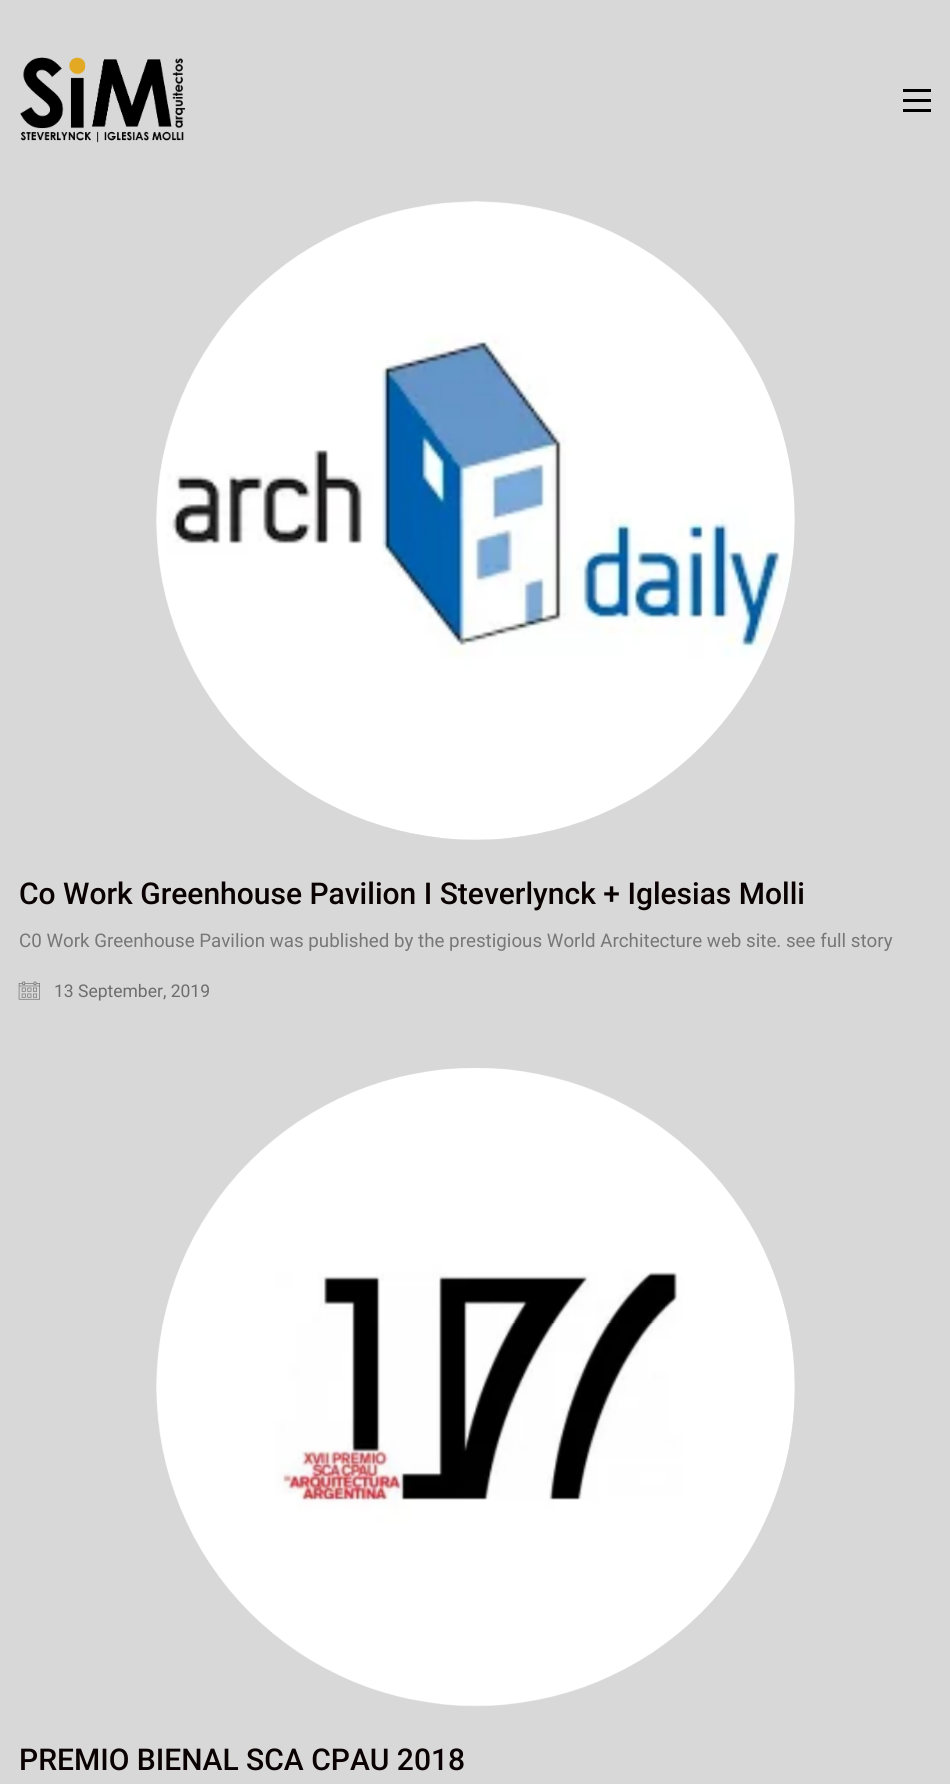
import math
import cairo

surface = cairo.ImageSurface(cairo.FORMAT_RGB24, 950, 1784)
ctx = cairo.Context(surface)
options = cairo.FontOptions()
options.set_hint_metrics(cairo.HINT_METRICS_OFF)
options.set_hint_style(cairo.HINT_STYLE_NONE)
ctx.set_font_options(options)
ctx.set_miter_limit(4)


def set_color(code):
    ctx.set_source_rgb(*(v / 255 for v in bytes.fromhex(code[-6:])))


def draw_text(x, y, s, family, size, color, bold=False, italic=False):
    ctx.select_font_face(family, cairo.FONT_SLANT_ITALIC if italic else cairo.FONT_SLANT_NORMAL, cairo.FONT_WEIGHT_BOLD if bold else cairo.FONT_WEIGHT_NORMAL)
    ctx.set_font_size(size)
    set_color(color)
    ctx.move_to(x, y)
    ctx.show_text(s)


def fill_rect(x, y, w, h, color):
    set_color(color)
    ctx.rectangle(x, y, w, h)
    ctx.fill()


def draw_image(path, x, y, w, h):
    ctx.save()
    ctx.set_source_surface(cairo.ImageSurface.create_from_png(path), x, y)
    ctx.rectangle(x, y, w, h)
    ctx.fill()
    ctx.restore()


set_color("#d8d8d8")
ctx.paint()
draw_image("assets/img1.png", 20, 57, 166, 86)
fill_rect(903, 89, 28, 3, "#000000")
fill_rect(903, 99, 28, 3, "#000000")
fill_rect(903, 109, 28, 3, "#000000")
draw_image("assets/img2.png", 156, 201, 639, 639)
draw_text(19, 904, "Co Work Greenhouse Pavilion I Steverlynck + Iglesias Molli", "Roboto Medium", 30, "#0a0202")
draw_text(19, 947, "C0 Work Greenhouse Pavilion was published by the prestigious World Architecture web site. see full story", "Roboto", 18.75, "#777777")
draw_image("assets/img3.png", 18, 981, 22, 19)
draw_text(54, 997, "13 September, 2019", "Roboto", 17.5, "#6d6d6d")
draw_image("assets/img4.png", 156, 1068, 639, 639)
draw_text(19, 1770, "PREMIO BIENAL SCA CPAU 2018", "Roboto Medium", 30, "#0a0202")
surface.write_to_png("output.png")
